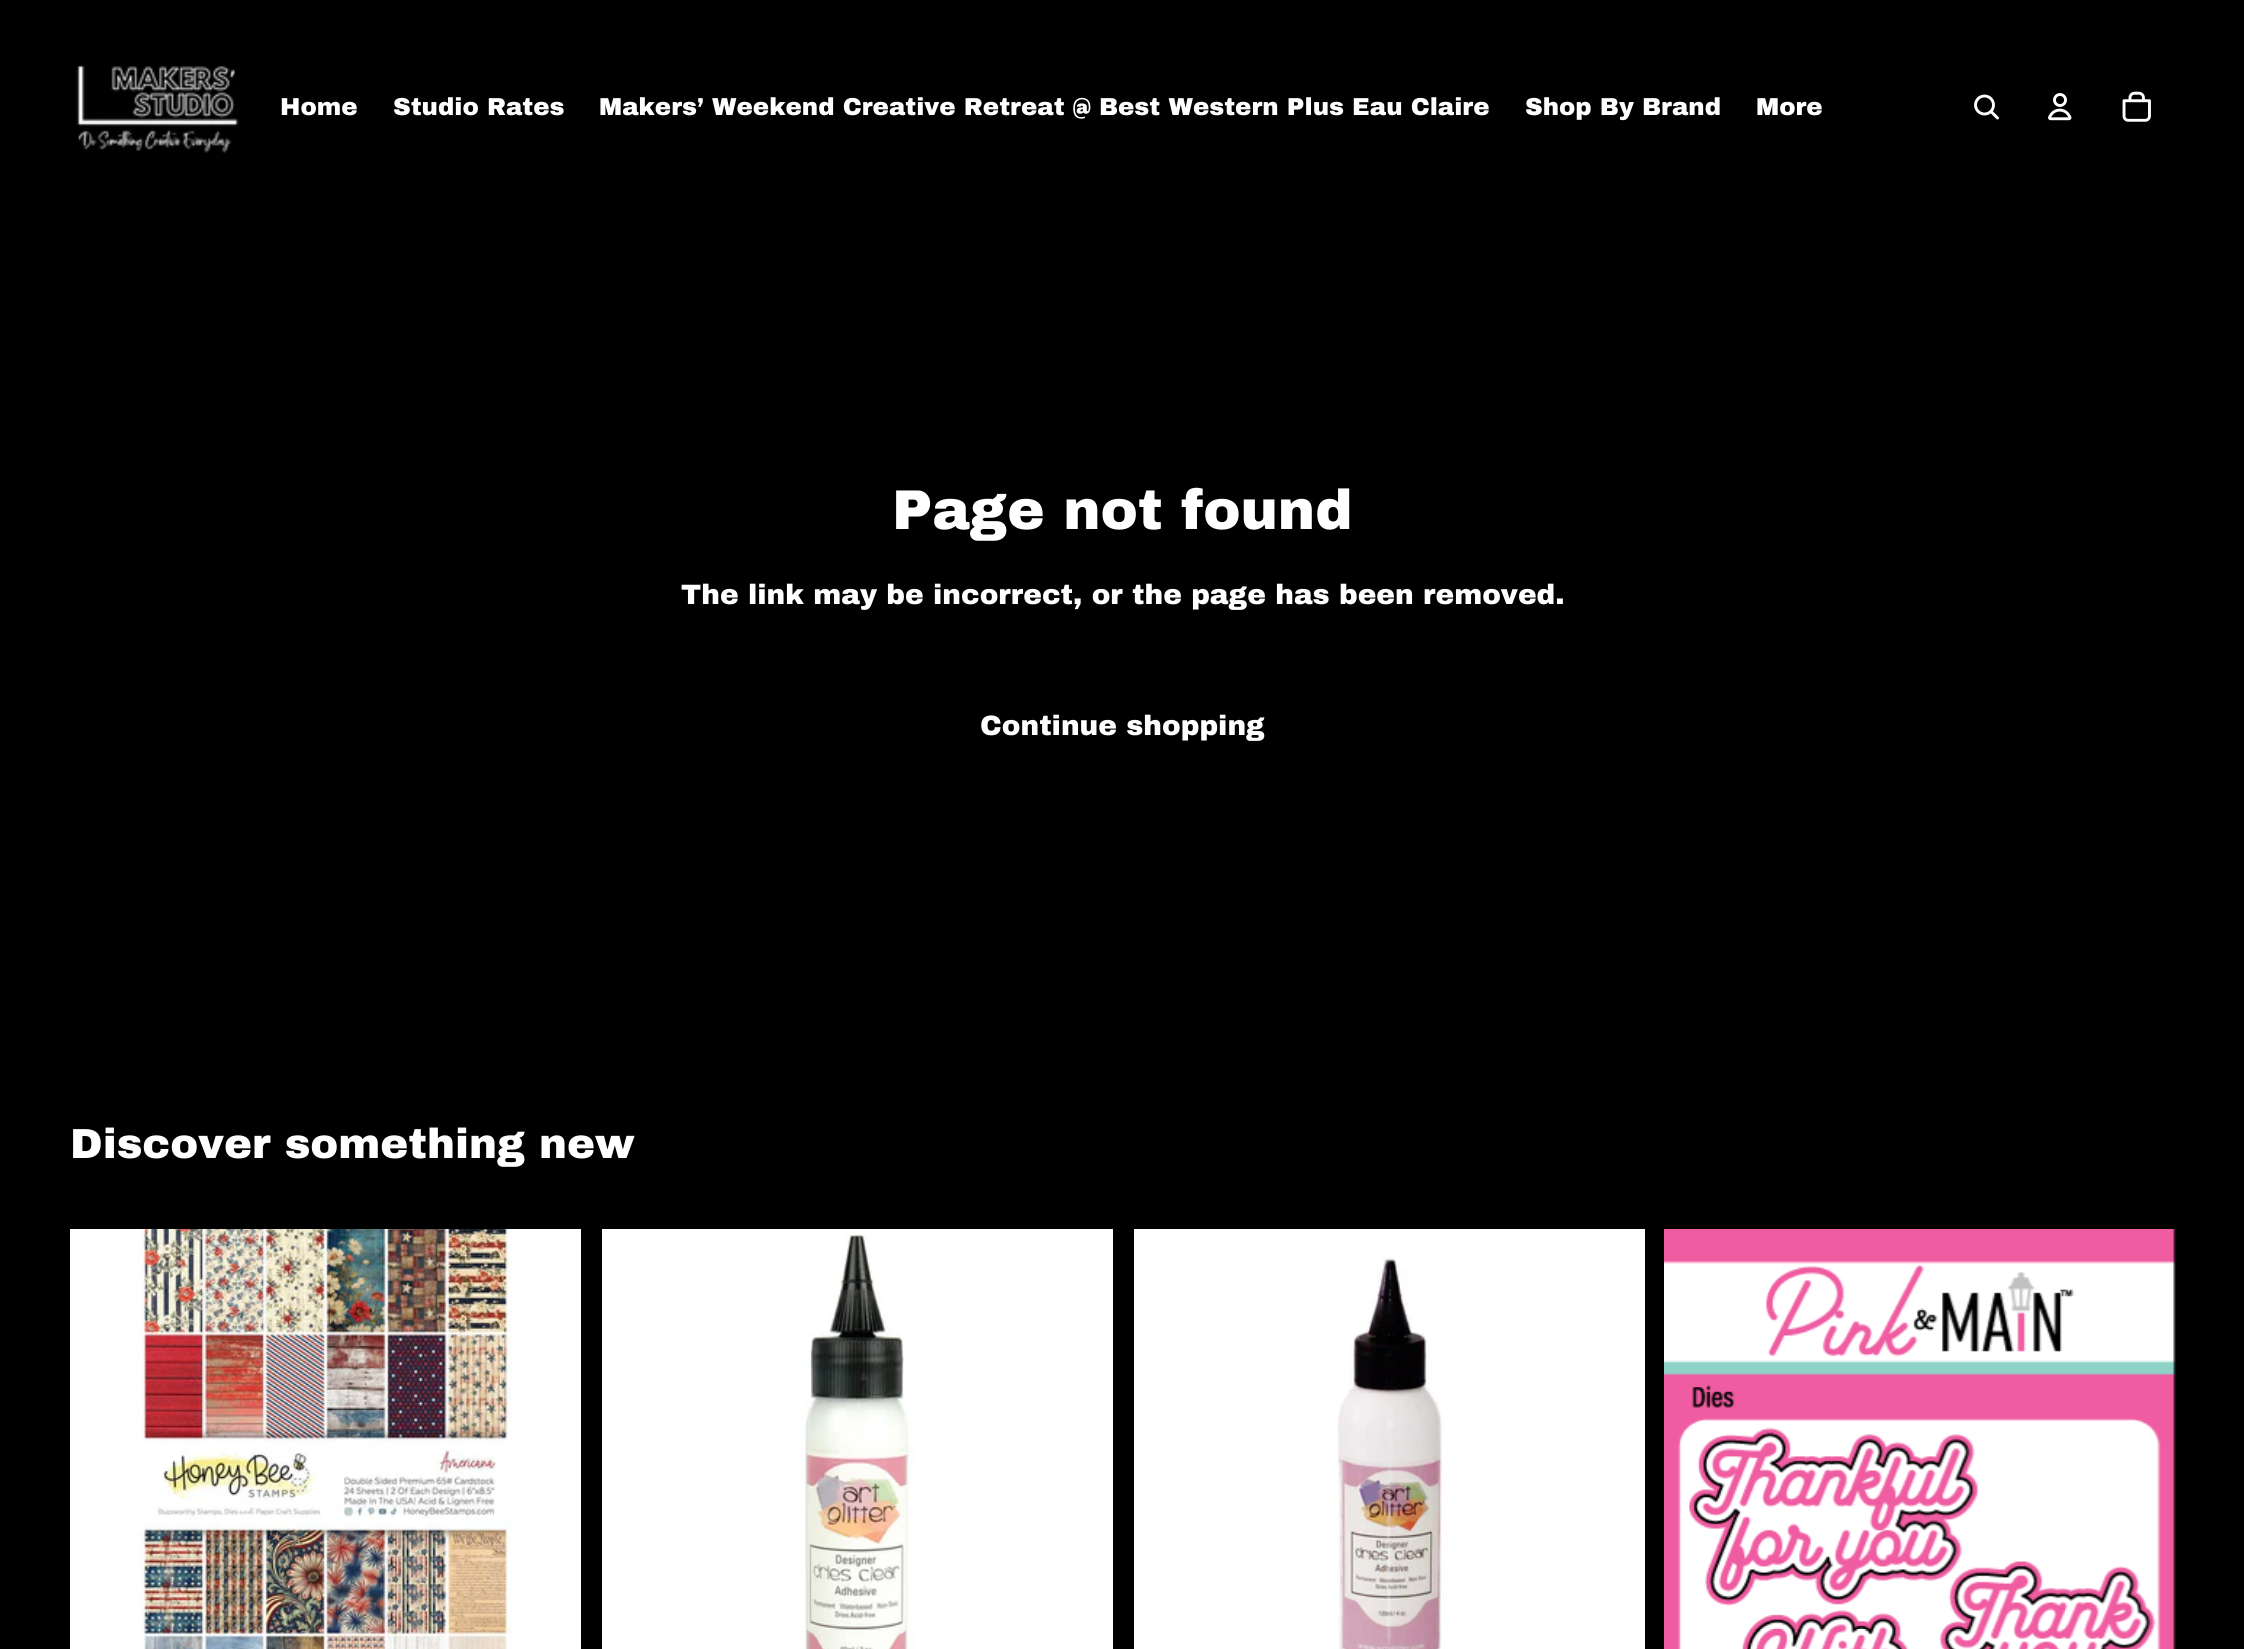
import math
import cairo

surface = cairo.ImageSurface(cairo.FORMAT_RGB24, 2244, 1649)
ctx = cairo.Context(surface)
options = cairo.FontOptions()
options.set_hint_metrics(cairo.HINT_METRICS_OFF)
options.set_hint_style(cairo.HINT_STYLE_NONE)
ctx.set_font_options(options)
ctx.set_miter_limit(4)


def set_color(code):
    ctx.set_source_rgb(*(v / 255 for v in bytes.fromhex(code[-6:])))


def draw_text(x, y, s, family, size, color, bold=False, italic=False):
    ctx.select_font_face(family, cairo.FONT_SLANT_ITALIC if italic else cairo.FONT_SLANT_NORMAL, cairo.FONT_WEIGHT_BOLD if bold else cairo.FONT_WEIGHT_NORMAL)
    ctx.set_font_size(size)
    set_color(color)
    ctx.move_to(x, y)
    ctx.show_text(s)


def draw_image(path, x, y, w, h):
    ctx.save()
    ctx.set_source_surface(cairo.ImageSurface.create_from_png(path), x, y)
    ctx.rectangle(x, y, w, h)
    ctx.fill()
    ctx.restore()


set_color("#000000")
ctx.paint()
draw_image("assets/img1.png", 76, 65, 163, 88)
draw_text(280, 115, "Home", "Archivo Black", 24.5, "#ffffff")
draw_text(393, 115, "Studio Rates", "Archivo Black", 24.5, "#ffffff")
draw_text(599, 115, "Makers’ Weekend Creative Retreat @ Best Western Plus Eau Claire", "Archivo Black", 24.5, "#ffffff")
draw_text(1525, 115, "Shop By Brand", "Archivo Black", 24.5, "#ffffff")
draw_text(1756, 115, "More", "Archivo Black", 24.5, "#ffffff")
ctx.new_path()
ctx.arc(1984.5, 105, 9, 0, 2 * math.pi)
ctx.set_line_width(2.9)
ctx.stroke()
ctx.new_path()
ctx.move_to(1991, 111.5)
ctx.line_to(1997.5, 118)
ctx.set_line_cap(cairo.LINE_CAP_ROUND)
ctx.set_line_join(cairo.LINE_JOIN_ROUND)
ctx.stroke()
draw_image("assets/img2.png", 2048, 93, 24, 28)
draw_image("assets/img3.png", 2122, 91, 29, 31)
draw_text(892, 529, "Page not found", "Archivo Black", 56, "#ffffff")
draw_text(681, 604, "The link may be incorrect, or the page has been removed.", "Archivo Black", 28, "#ffffff")
draw_text(980, 735, "Continue shopping", "Archivo Black", 28, "#ffffff")
draw_text(70, 1158, "Discover something new", "Archivo Black", 42, "#ffffff")
draw_image("assets/img4.png", 70, 1229, 511, 420)
draw_image("assets/img5.png", 602, 1229, 511, 420)
draw_image("assets/img6.png", 1134, 1229, 511, 420)
draw_image("assets/img7.png", 1664, 1229, 512, 420)
surface.write_to_png("output.png")
